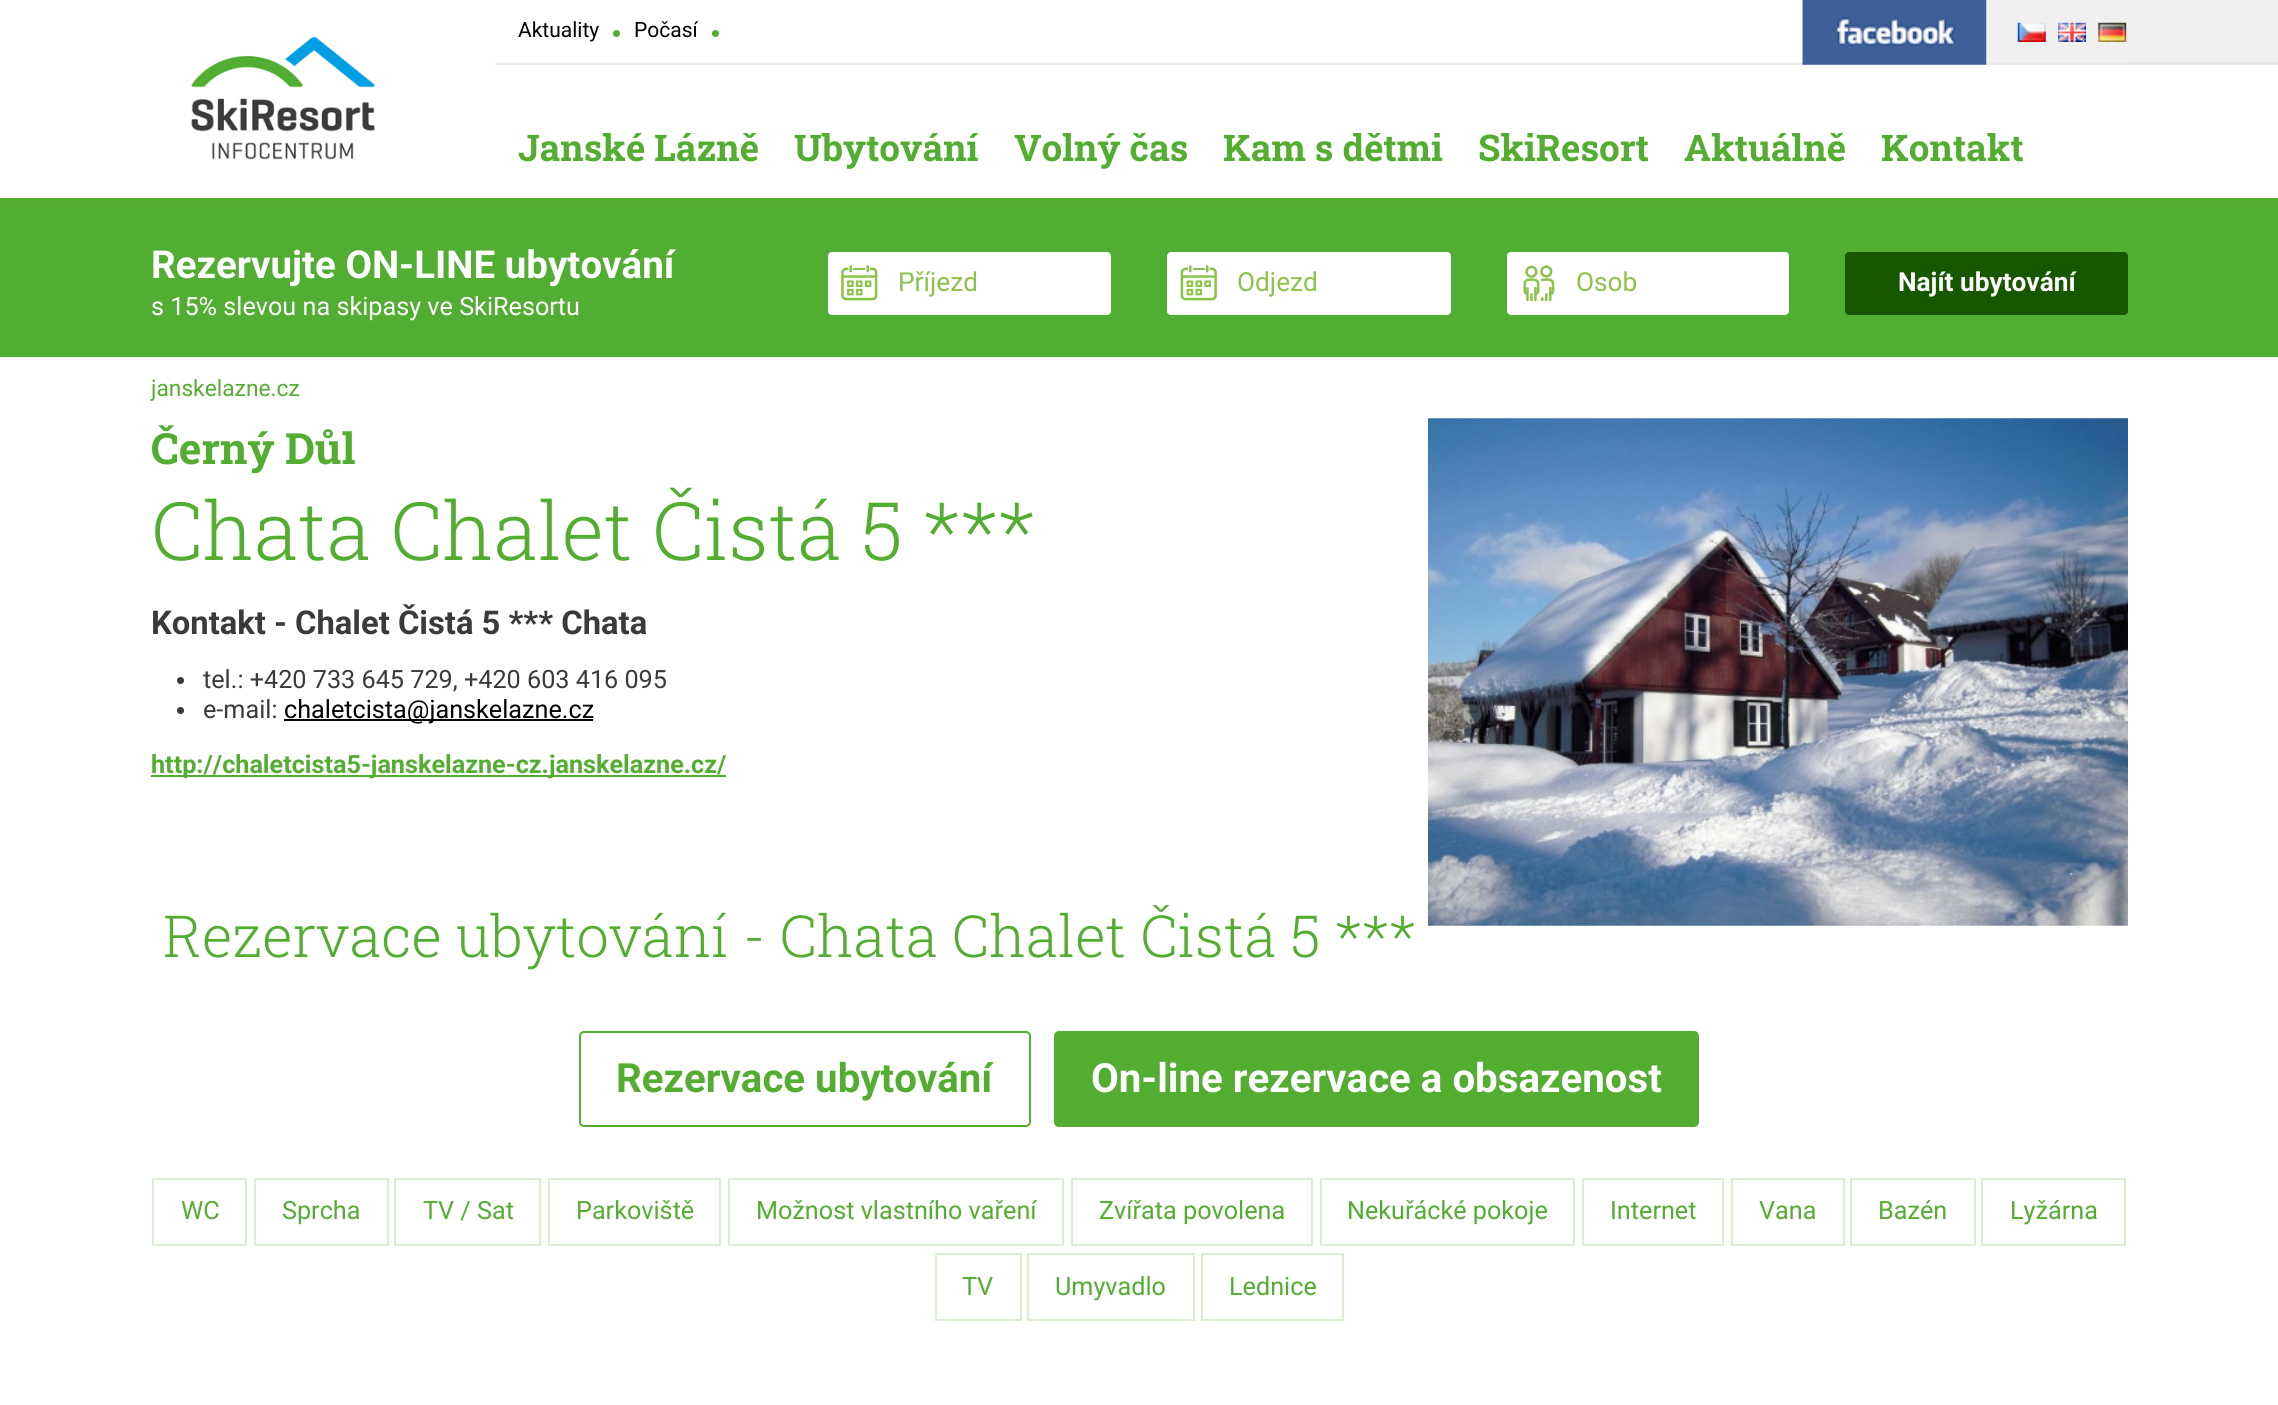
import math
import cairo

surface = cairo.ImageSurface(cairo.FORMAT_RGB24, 2278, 1405)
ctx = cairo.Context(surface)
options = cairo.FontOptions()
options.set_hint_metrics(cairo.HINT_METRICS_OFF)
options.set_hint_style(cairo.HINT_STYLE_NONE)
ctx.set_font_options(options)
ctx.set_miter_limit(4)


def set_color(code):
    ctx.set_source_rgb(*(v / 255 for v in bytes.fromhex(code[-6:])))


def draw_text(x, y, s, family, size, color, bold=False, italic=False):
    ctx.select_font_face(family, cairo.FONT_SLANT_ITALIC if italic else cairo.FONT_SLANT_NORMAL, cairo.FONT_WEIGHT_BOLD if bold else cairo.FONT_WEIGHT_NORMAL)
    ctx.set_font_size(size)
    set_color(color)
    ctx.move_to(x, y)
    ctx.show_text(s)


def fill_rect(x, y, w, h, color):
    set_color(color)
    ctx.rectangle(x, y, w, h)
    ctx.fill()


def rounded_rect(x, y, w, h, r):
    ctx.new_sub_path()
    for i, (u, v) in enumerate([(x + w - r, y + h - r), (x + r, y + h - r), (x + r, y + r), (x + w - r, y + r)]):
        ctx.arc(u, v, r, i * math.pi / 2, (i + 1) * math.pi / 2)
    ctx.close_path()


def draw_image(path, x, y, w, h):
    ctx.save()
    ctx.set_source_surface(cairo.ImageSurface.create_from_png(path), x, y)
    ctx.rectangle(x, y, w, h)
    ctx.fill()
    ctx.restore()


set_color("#ffffff")
ctx.paint()
draw_image("assets/img1.png", 2128, 0, 150, 65)
fill_rect(0, 198, 2278, 12, "#53ad31")
draw_image("assets/img2.png", 494, 62, 1634, 3)
draw_text(518, 37, "Aktuality", "Roboto", 21, "#000000")
set_color("#53ad31")
ctx.new_path()
ctx.arc(616.5, 33.5, 3.5, 0, 2 * math.pi)
ctx.fill()
draw_text(634, 37, "Počasí", "Roboto", 21, "#000000")
set_color("#53ad31")
ctx.new_path()
ctx.arc(715.5, 33.5, 3.5, 0, 2 * math.pi)
ctx.fill()
fill_rect(1986, 0, 142, 63, "#f0f0f0")
draw_image("assets/img3.png", 1802, 0, 185, 65)
draw_image("assets/img4.png", 2017, 22, 29, 20)
draw_image("assets/img5.png", 2058, 22, 28, 20)
draw_image("assets/img6.png", 2098, 22, 29, 20)
draw_image("assets/img7.png", 191, 36, 184, 124)
draw_text(518, 161, "Janské Lázně", "Roboto Slab", 36.75, "#53ad31", bold=True)
draw_text(794, 161, "Ubytování", "Roboto Slab", 36.75, "#53ad31", bold=True)
draw_text(1014, 161, "Volný čas", "Roboto Slab", 36.75, "#53ad31", bold=True)
draw_text(1223, 161, "Kam s dětmi", "Roboto Slab", 36.75, "#53ad31", bold=True)
draw_text(1478, 161, "SkiResort", "Roboto Slab", 36.75, "#53ad31", bold=True)
draw_text(1684, 161, "Aktuálně", "Roboto Slab", 36.75, "#53ad31", bold=True)
draw_text(1881, 161, "Kontakt", "Roboto Slab", 36.75, "#53ad31", bold=True)
fill_rect(0, 210, 2278, 147, "#52ae32")
draw_text(151, 278, "Rezervujte ON-LINE ubytování", "Roboto", 38.5, "#ffffff", bold=True)
draw_text(151, 315, "s 15% slevou na skipasy ve SkiResortu", "Roboto", 25.2, "#ffffff")
rounded_rect(828, 252, 283, 63, 4)
ctx.fill()
draw_image("assets/img8.png", 841, 265, 37, 36)
draw_text(898, 291, "Příjezd", "Roboto", 26.25, "#8bc34a")
set_color("#ffffff")
rounded_rect(1167, 252, 284, 63, 4)
ctx.fill()
draw_image("assets/img9.png", 1180, 265, 37, 36)
draw_text(1237, 291, "Odjezd", "Roboto", 26.25, "#8bc34a")
set_color("#ffffff")
rounded_rect(1507, 252, 282, 63, 4)
ctx.fill()
draw_image("assets/img10.png", 1523, 265, 32, 36)
draw_text(1576, 291, "Osob", "Roboto", 26.25, "#8bc34a")
set_color("#165700")
rounded_rect(1845, 252, 283, 63, 4)
ctx.fill()
draw_text(1898, 291, "Najít ubytování", "Roboto", 26.25, "#ffffff", bold=True)
draw_text(151, 396, "janskelazne.cz", "Roboto", 22.75, "#53ad31")
draw_text(151, 464, "Černý Důl", "Roboto Slab", 43, "#53ad31", bold=True)
draw_image("assets/img11.png", 1428, 418, 700, 508)
draw_text(151, 560, "Chata Chalet Čistá 5 ***", "Roboto Slab Light", 80.6, "#53ad31")
draw_text(151, 634, "Kontakt - Chalet Čistá 5 *** Chata", "Roboto", 32.75, "#3a3a3a", bold=True)
ctx.new_path()
ctx.arc(180.5, 680.5, 3.5, 0, 2 * math.pi)
ctx.fill()
draw_text(203, 688, "tel.: +420 733 645 729, +420 603 416 095", "Roboto", 25.2, "#3a3a3a")
ctx.new_path()
ctx.arc(180.5, 710.5, 3.5, 0, 2 * math.pi)
ctx.fill()
draw_text(203, 718, "e-mail:", "Roboto", 25.2, "#3a3a3a")
fill_rect(284, 719, 309, 2, "#000000")
draw_text(284, 718, "chaletcista@janskelazne.cz", "Roboto", 25.2, "#000000")
fill_rect(151, 775, 575, 2, "#53ad31")
draw_text(151, 773, "http://chaletcista5-janskelazne-cz.janskelazne.cz/", "Roboto", 25.2, "#53ad31", bold=True)
draw_text(163, 957, "Rezervace ubytování - Chata Chalet Čistá 5 ***", "Roboto Slab Light", 58, "#53ad31")
rounded_rect(580, 1032, 450, 94, 4)
ctx.stroke()
draw_text(616, 1092, "Rezervace ubytování", "Roboto", 40.25, "#53ad31", bold=True)
rounded_rect(1055, 1032, 643, 94, 4)
ctx.fill_preserve()
ctx.stroke()
draw_text(1091, 1092, "On-line rezervace a obsazenost", "Roboto", 40.25, "#ffffff", bold=True)
ctx.rectangle(153, 1179, 93, 66)
set_color("#d9eed2")
ctx.stroke()
draw_text(181, 1219, "WC", "Roboto", 25.2, "#53ad31")
ctx.rectangle(255, 1179, 133, 66)
set_color("#d9eed2")
ctx.stroke()
draw_text(282, 1219, "Sprcha", "Roboto", 25.2, "#53ad31")
ctx.rectangle(395, 1179, 145, 66)
set_color("#d9eed2")
ctx.stroke()
draw_text(423, 1219, "TV / Sat", "Roboto", 25.2, "#53ad31")
ctx.rectangle(549, 1179, 171, 66)
set_color("#d9eed2")
ctx.stroke()
draw_text(576, 1219, "Parkoviště", "Roboto", 25.2, "#53ad31")
ctx.rectangle(729, 1179, 334, 66)
set_color("#d9eed2")
ctx.stroke()
draw_text(756, 1219, "Možnost vlastního vaření", "Roboto", 25.2, "#53ad31")
ctx.rectangle(1072, 1179, 240, 66)
set_color("#d9eed2")
ctx.stroke()
draw_text(1099, 1219, "Zvířata povolena", "Roboto", 25.2, "#53ad31")
ctx.rectangle(1321, 1179, 253, 66)
set_color("#d9eed2")
ctx.stroke()
draw_text(1347, 1219, "Nekuřácké pokoje", "Roboto", 25.2, "#53ad31")
ctx.rectangle(1583, 1179, 140, 66)
set_color("#d9eed2")
ctx.stroke()
draw_text(1610, 1219, "Internet", "Roboto", 25.2, "#53ad31")
ctx.rectangle(1732, 1179, 112, 66)
set_color("#d9eed2")
ctx.stroke()
draw_text(1759, 1219, "Vana", "Roboto", 25.2, "#53ad31")
ctx.rectangle(1851, 1179, 124, 66)
set_color("#d9eed2")
ctx.stroke()
draw_text(1878, 1219, "Bazén", "Roboto", 25.2, "#53ad31")
ctx.rectangle(1982, 1179, 143, 66)
set_color("#d9eed2")
ctx.stroke()
draw_text(2010, 1219, "Lyžárna", "Roboto", 25.2, "#53ad31")
ctx.rectangle(936, 1254, 85, 66)
set_color("#d9eed2")
ctx.stroke()
draw_text(962, 1295, "TV", "Roboto", 25.2, "#53ad31")
ctx.rectangle(1028, 1254, 166, 66)
set_color("#d9eed2")
ctx.stroke()
draw_text(1055, 1295, "Umyvadlo", "Roboto", 25.2, "#53ad31")
ctx.rectangle(1202, 1254, 141, 66)
set_color("#d9eed2")
ctx.stroke()
draw_text(1229, 1295, "Lednice", "Roboto", 25.2, "#53ad31")
surface.write_to_png("output.png")
